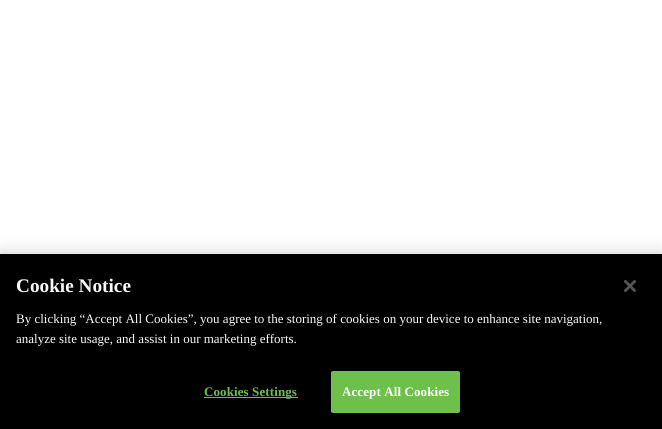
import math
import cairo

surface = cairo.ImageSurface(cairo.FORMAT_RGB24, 662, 429)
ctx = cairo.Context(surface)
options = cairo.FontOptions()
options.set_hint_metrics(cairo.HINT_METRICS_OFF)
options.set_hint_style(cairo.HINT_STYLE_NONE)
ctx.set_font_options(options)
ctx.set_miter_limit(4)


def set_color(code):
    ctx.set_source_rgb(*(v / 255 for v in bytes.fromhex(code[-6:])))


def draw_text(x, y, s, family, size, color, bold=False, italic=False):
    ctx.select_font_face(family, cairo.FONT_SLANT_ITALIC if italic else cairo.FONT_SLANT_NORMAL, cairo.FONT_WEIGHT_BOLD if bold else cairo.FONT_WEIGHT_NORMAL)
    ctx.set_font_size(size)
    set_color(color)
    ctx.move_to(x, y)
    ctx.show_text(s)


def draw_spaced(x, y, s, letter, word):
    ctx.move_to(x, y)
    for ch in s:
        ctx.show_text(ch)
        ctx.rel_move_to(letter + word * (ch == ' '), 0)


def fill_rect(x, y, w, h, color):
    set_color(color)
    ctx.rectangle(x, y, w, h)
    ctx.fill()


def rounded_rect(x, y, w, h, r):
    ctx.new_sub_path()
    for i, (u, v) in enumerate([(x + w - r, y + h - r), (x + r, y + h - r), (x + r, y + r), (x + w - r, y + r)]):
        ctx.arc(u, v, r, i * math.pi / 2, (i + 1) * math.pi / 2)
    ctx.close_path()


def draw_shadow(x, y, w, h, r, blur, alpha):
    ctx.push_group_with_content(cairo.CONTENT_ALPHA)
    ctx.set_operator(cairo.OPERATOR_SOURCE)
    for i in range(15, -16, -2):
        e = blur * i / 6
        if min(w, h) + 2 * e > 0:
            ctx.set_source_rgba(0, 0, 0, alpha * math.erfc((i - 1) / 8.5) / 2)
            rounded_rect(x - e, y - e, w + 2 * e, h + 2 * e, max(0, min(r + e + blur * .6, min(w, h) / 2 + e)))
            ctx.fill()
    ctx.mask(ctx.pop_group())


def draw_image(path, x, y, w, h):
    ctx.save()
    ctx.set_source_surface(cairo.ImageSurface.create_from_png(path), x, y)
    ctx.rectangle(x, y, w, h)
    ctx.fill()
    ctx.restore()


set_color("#ffffff")
ctx.paint()
set_color("#000000")
draw_shadow(0, 254, 662, 175, 0, 9, 0.2)
fill_rect(0, 254, 662, 175, "#000000")
draw_text(16, 292, "Cookie Notice", "Liberation Serif", 19.25, "#f8f8f8", bold=True)
draw_text(16, 323, "By clicking “Accept All Cookies”, you agree to the storing of cookies on your device to enhance site navigation,", "Liberation Serif", 13, "#f8f8f8")
draw_text(16, 343, "analyze site usage, and assist in our marketing efforts.", "Liberation Serif", 13, "#f8f8f8")
fill_rect(204, 397, 94, 1, "#6cc04a")
ctx.select_font_face("Liberation Serif", cairo.FONT_SLANT_NORMAL, cairo.FONT_WEIGHT_BOLD)
draw_spaced(204, 396, "Cookies Settings", 0.1, 0)
set_color("#6dc04a")
rounded_rect(331.5, 371.5, 128, 41, 1.5)
ctx.fill_preserve()
ctx.set_line_width(1)
ctx.stroke()
set_color("#ffffff")
draw_spaced(342, 396, "Accept All Cookies", 0.1, 0)
draw_image("assets/img1.png", 624, 280, 12, 12)
surface.write_to_png("output.png")
